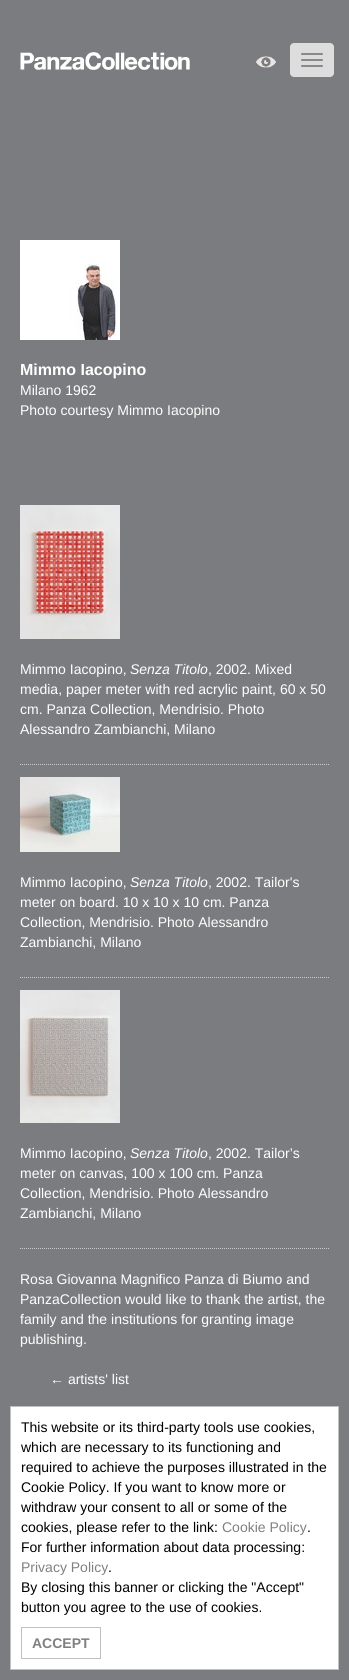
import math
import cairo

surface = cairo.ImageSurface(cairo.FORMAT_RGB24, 349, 1680)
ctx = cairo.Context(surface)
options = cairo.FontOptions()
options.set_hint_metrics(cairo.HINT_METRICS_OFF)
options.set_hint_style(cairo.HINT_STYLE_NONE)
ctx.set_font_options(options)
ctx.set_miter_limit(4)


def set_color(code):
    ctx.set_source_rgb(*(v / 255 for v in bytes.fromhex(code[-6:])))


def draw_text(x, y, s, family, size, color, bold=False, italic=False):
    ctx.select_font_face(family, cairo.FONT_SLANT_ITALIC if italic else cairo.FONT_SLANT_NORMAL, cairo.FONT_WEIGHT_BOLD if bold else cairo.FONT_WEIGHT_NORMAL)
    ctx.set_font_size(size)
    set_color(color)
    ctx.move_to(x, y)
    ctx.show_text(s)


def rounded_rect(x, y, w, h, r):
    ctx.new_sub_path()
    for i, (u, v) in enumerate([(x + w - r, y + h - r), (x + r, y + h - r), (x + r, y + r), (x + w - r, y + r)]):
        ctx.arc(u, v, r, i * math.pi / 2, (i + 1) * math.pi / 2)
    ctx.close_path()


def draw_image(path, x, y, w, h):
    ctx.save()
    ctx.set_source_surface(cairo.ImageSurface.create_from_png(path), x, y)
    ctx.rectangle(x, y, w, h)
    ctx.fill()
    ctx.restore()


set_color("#7a7c7f")
ctx.paint()
draw_image("assets/img1.png", 20, 52, 170, 18)
draw_image("assets/img2.png", 256, 56, 21, 12)
set_color("#dddddd")
rounded_rect(290.5, 43.5, 43, 33, 3.5)
ctx.fill_preserve()
ctx.set_line_width(1)
ctx.stroke()
set_color("#888888")
rounded_rect(301, 53, 22, 2, 1)
ctx.fill()
rounded_rect(301, 59, 22, 2, 1)
ctx.fill()
rounded_rect(301, 65, 22, 2, 1)
ctx.fill()
draw_image("assets/img3.png", 20, 240, 100, 100)
draw_text(20, 375, "Mimmo Iacopino", "Liberation Sans", 16, "#ffffff", bold=True)
draw_text(20, 395, "Milano 1962", "Liberation Sans", 14, "#ffffff")
draw_text(20, 415, "Photo courtesy Mimmo Iacopino", "Liberation Sans", 14, "#ffffff")
ctx.new_path()
ctx.move_to(20, 764.5)
ctx.line_to(329, 764.5)
set_color("#cccccc")
ctx.set_dash([1, 1])
ctx.stroke()
draw_image("assets/img4.png", 20, 505, 100, 134)
draw_text(20, 674, "Mimmo Iacopino,", "Liberation Sans", 14, "#ffffff")
draw_text(130, 674, "Senza Titolo", "Liberation Sans", 14, "#ffffff", italic=True)
draw_text(208, 674, ", 2002. Mixed", "Liberation Sans", 14, "#ffffff")
draw_text(20, 694, "media, paper meter with red acrylic paint, 60 x 50", "Liberation Sans", 14, "#ffffff")
draw_text(20, 714, "cm. Panza Collection, Mendrisio. Photo", "Liberation Sans", 14, "#ffffff")
draw_text(20, 734, "Alessandro Zambianchi, Milano", "Liberation Sans", 14, "#ffffff")
ctx.new_path()
ctx.move_to(20, 977.5)
ctx.line_to(329, 977.5)
set_color("#cccccc")
ctx.stroke()
draw_image("assets/img5.png", 20, 777, 100, 75)
draw_text(20, 887, "Mimmo Iacopino,", "Liberation Sans", 14, "#ffffff")
draw_text(130, 887, "Senza Titolo", "Liberation Sans", 14, "#ffffff", italic=True)
draw_text(208, 887, ", 2002. Tailor's", "Liberation Sans", 14, "#ffffff")
draw_text(20, 907, "meter on board. 10 x 10 x 10 cm. Panza", "Liberation Sans", 14, "#ffffff")
draw_text(20, 927, "Collection, Mendrisio. Photo Alessandro", "Liberation Sans", 14, "#ffffff")
draw_text(20, 947, "Zambianchi, Milano", "Liberation Sans", 14, "#ffffff")
ctx.new_path()
ctx.move_to(20, 1248.5)
ctx.line_to(329, 1248.5)
set_color("#cccccc")
ctx.stroke()
draw_image("assets/img6.png", 20, 990, 100, 133)
draw_text(20, 1158, "Mimmo Iacopino,", "Liberation Sans", 14, "#ffffff")
draw_text(130, 1158, "Senza Titolo", "Liberation Sans", 14, "#ffffff", italic=True)
draw_text(208, 1158, ", 2002. Tailor’s", "Liberation Sans", 14, "#ffffff")
draw_text(20, 1178, "meter on canvas, 100 x 100 cm. Panza", "Liberation Sans", 14, "#ffffff")
draw_text(20, 1198, "Collection, Mendrisio. Photo Alessandro", "Liberation Sans", 14, "#ffffff")
draw_text(20, 1218, "Zambianchi, Milano", "Liberation Sans", 14, "#ffffff")
draw_text(20, 1284, "Rosa Giovanna Magnifico Panza di Biumo and", "Liberation Sans", 14, "#ffffff")
draw_text(20, 1304, "PanzaCollection would like to thank the artist, the", "Liberation Sans", 14, "#ffffff")
draw_text(20, 1324, "family and the institutions for granting image", "Liberation Sans", 14, "#ffffff")
draw_text(20, 1344, "publishing.", "Liberation Sans", 14, "#ffffff")
draw_text(50, 1384, "← artists' list", "Liberation Sans", 14, "#ffffff")
ctx.rectangle(10.5, 1406.5, 328, 263)
ctx.fill_preserve()
set_color("#c0c0c0")
ctx.set_dash([])
ctx.stroke()
draw_text(21, 1432, "This website or its third-party tools use cookies,", "Liberation Sans", 14, "#000000")
draw_text(21, 1452, "which are necessary to its functioning and", "Liberation Sans", 14, "#000000")
draw_text(21, 1472, "required to achieve the purposes illustrated in the", "Liberation Sans", 14, "#000000")
draw_text(21, 1492, "Cookie Policy. If you want to know more or", "Liberation Sans", 14, "#000000")
draw_text(21, 1512, "withdraw your consent to all or some of the", "Liberation Sans", 14, "#000000")
draw_text(21, 1532, "cookies, please refer to the link:", "Liberation Sans", 14, "#000000")
draw_text(222, 1532, "Cookie Policy", "Liberation Sans", 14, "#808080")
draw_text(307, 1532, ".", "Liberation Sans", 14, "#000000")
draw_text(21, 1552, "For further information about data processing:", "Liberation Sans", 14, "#000000")
draw_text(21, 1572, "Privacy Policy", "Liberation Sans", 14, "#808080")
draw_text(108, 1572, ".", "Liberation Sans", 14, "#000000")
draw_text(21, 1592, "By closing this banner or clicking the \"Accept\"", "Liberation Sans", 14, "#000000")
draw_text(21, 1612, "button you agree to the use of cookies.", "Liberation Sans", 14, "#000000")
ctx.rectangle(21.5, 1627.5, 79, 31)
set_color("#c0c0c0")
ctx.stroke()
draw_text(32, 1648, "ACCEPT", "Liberation Sans", 14, "#808080", bold=True)
surface.write_to_png("output.png")
